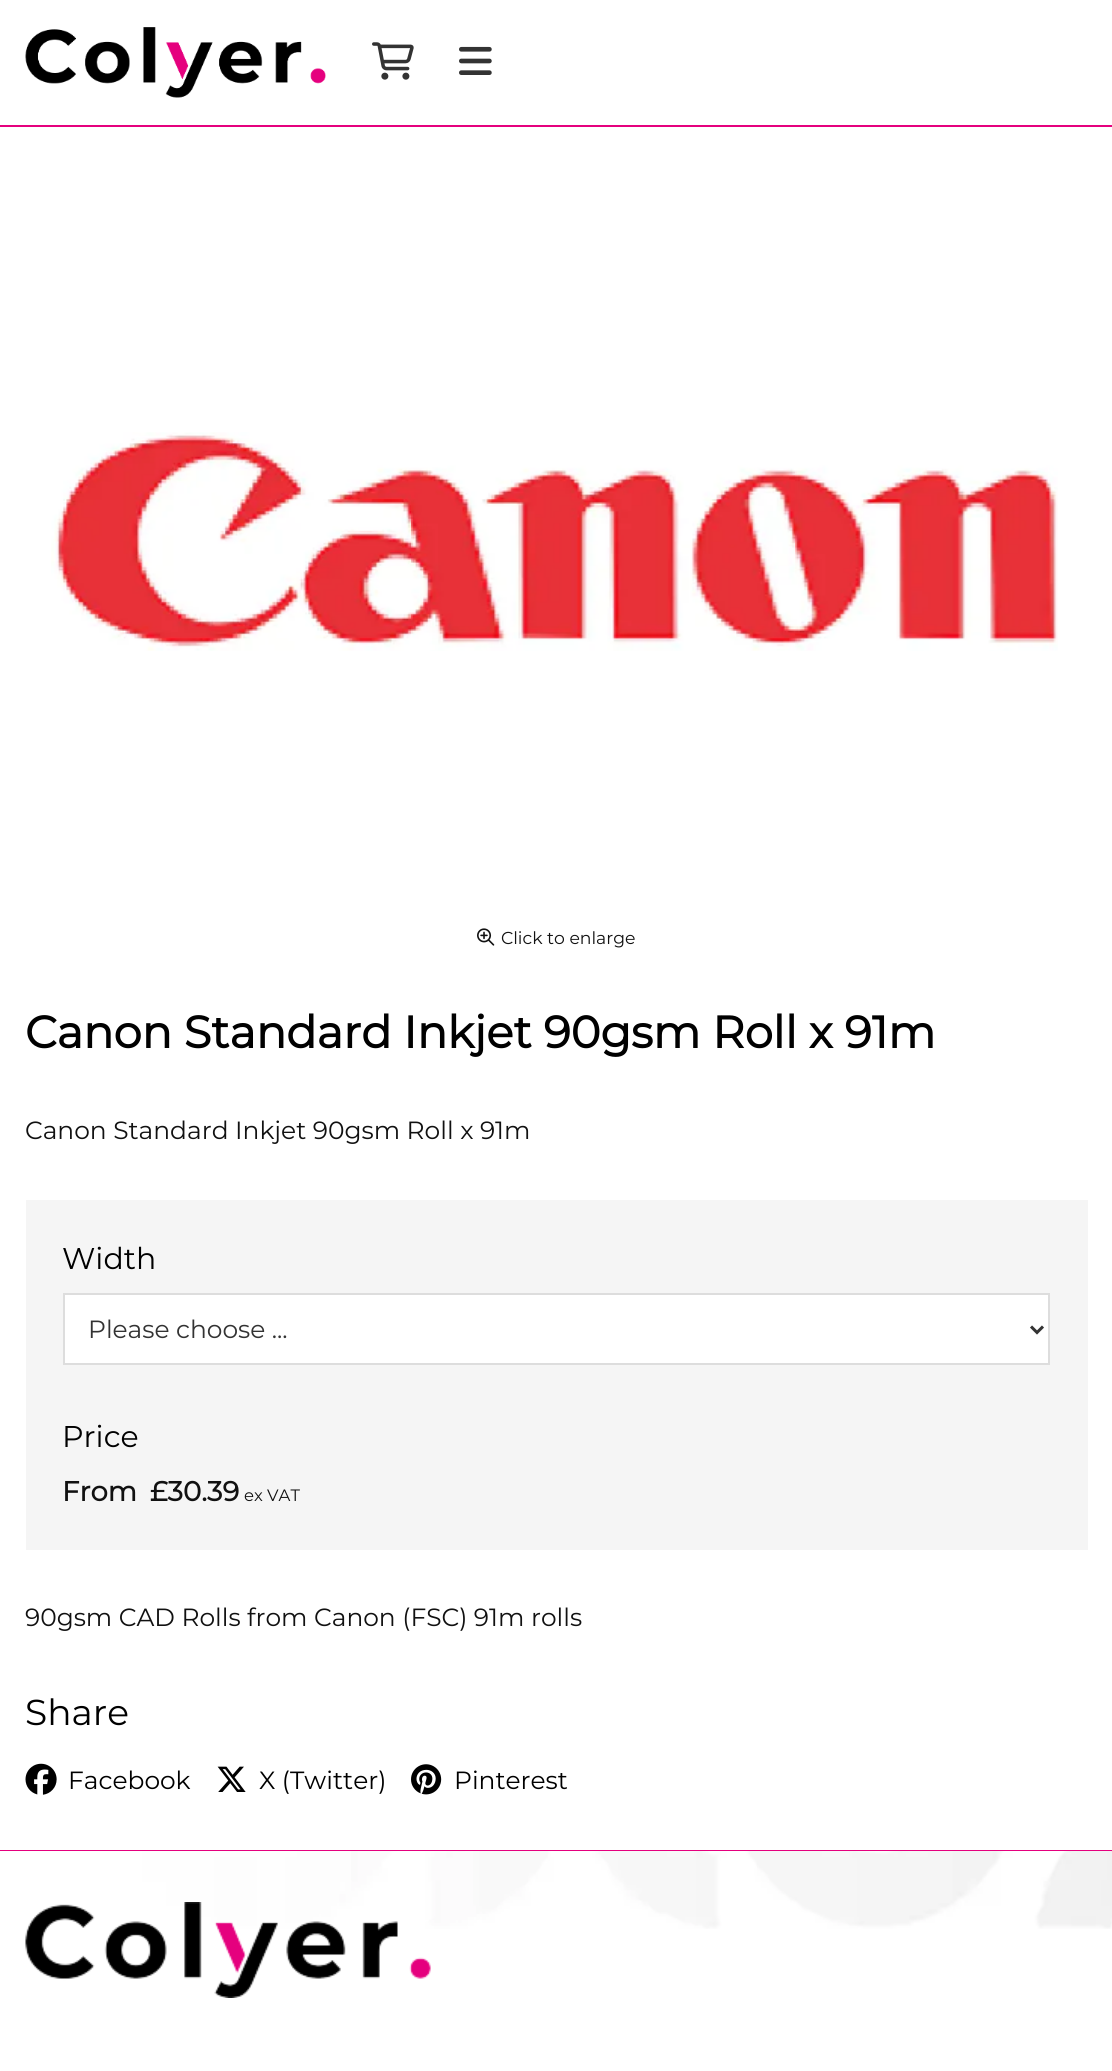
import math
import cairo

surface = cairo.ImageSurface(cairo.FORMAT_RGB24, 1112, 2071)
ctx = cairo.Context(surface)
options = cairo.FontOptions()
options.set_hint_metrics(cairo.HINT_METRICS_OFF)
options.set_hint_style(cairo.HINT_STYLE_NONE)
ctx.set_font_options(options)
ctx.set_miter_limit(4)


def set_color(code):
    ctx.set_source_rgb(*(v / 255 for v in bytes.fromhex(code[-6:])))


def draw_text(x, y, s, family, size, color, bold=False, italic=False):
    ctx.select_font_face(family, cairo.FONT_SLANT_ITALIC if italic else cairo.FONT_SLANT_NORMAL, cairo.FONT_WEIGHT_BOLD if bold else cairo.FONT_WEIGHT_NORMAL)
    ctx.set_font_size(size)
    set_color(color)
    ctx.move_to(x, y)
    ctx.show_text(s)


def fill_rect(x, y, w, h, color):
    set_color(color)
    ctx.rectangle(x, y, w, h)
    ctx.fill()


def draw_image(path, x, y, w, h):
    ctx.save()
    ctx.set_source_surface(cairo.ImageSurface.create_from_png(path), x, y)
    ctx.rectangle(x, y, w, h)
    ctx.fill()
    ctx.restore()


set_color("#ffffff")
ctx.paint()
fill_rect(0, 125, 1112, 2, "#e5007e")
draw_image("assets/img1.png", 25, 27, 301, 71)
draw_image("assets/img2.png", 372, 42, 42, 38)
draw_image("assets/img3.png", 459, 46, 33, 29)
draw_image("assets/img4.png", 51, 432, 1007, 219)
draw_image("assets/img5.png", 477, 928, 18, 18)
draw_text(501, 944, "Click to enlarge", "Montserrat Thin", 17.25, "#111111")
draw_text(25, 1048, "Canon Standard Inkjet 90gsm Roll x 91m", "Montserrat", 44.85, "#000000", bold=True)
draw_text(25, 1139, "Canon Standard Inkjet 90gsm Roll x 91m", "Montserrat Thin", 24.9, "#111111")
fill_rect(26, 1200, 1062, 350, "#f5f5f5")
draw_text(62, 1269, "Width", "Montserrat Thin", 30, "#000000")
set_color("#ffffff")
ctx.rectangle(64, 1294, 985, 70)
ctx.fill_preserve()
set_color("#dddddd")
ctx.stroke()
ctx.new_path()
ctx.move_to(1031, 1326.5)
ctx.line_to(1037, 1332.5)
ctx.line_to(1043, 1326.5)
set_color("#333333")
ctx.set_line_width(3)
ctx.stroke()
draw_text(88, 1338, "Please choose ...", "Montserrat Thin", 24.9, "#333333")
draw_text(62, 1447, "Price", "Montserrat Thin", 30, "#000000")
draw_text(62, 1501, "From", "Montserrat", 27.5, "#111111", bold=True)
draw_text(150, 1501, "£30.39", "Montserrat", 27.5, "#111111", bold=True)
draw_text(244, 1501, "ex VAT", "Montserrat Thin", 16.5, "#111111")
draw_text(25, 1626, "90gsm CAD Rolls from Canon (FSC) 91m rolls", "Montserrat Thin", 24.9, "#111111")
draw_text(25, 1725, "Share", "Montserrat Thin", 36, "#000000")
draw_image("assets/img6.png", 25, 1763, 32, 32)
draw_text(68, 1789, "Facebook", "Montserrat Thin", 24.9, "#000000")
draw_image("assets/img7.png", 217, 1766, 29, 26)
draw_text(259, 1789, "X (Twitter)", "Montserrat Thin", 24.9, "#000000")
draw_image("assets/img8.png", 411, 1764, 31, 31)
draw_text(454, 1789, "Pinterest", "Montserrat Thin", 24.9, "#000000")
fill_rect(0, 1850, 1112, 2, "#e5007e")
draw_image("assets/img9.png", 0, 1851, 1112, 78)
draw_image("assets/img10.png", 25, 1902, 406, 96)
surface.write_to_png("output.png")
